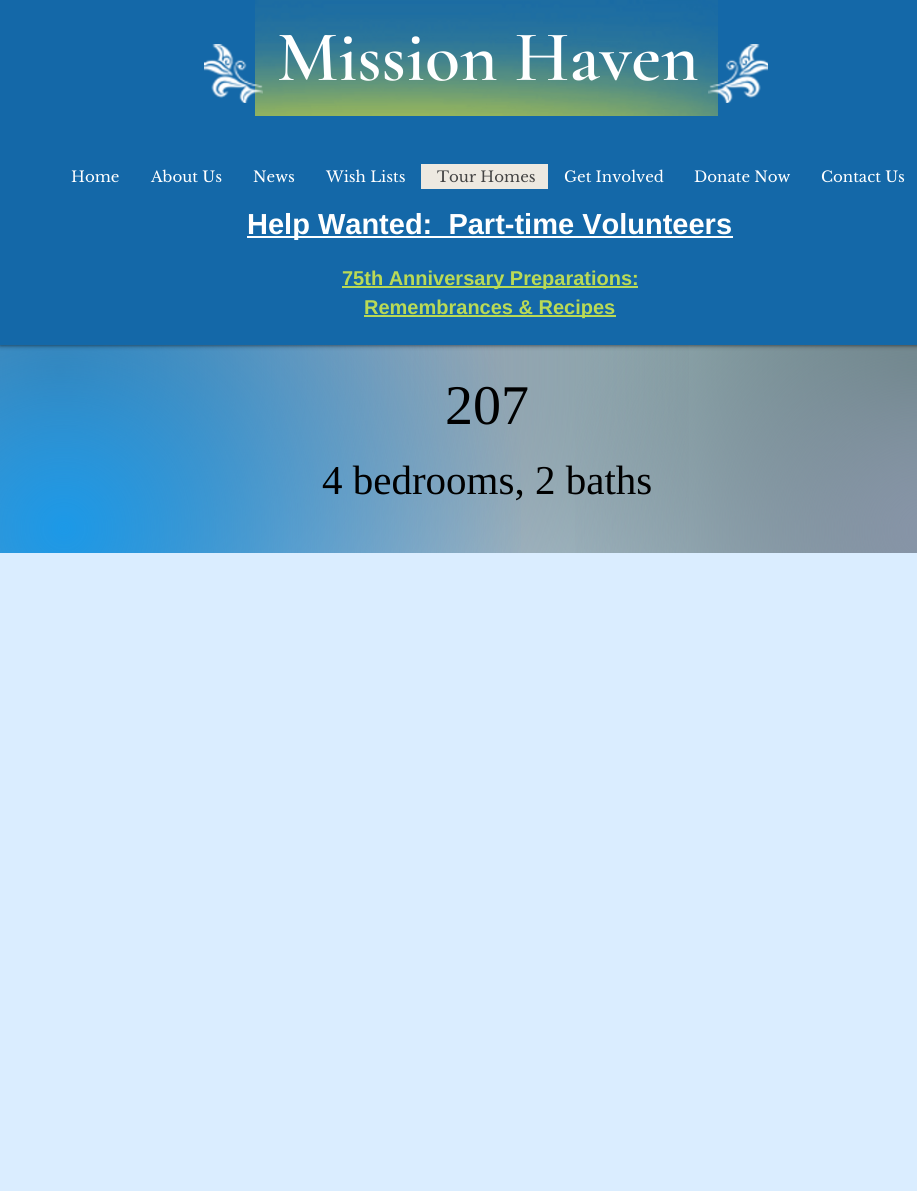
import math
import cairo

surface = cairo.ImageSurface(cairo.FORMAT_RGB24, 917, 1191)
ctx = cairo.Context(surface)
options = cairo.FontOptions()
options.set_hint_metrics(cairo.HINT_METRICS_OFF)
options.set_hint_style(cairo.HINT_STYLE_NONE)
ctx.set_font_options(options)
ctx.set_miter_limit(4)


def set_color(code):
    ctx.set_source_rgb(*(v / 255 for v in bytes.fromhex(code[-6:])))


def draw_text(x, y, s, family, size, color, bold=False, italic=False):
    ctx.select_font_face(family, cairo.FONT_SLANT_ITALIC if italic else cairo.FONT_SLANT_NORMAL, cairo.FONT_WEIGHT_BOLD if bold else cairo.FONT_WEIGHT_NORMAL)
    ctx.set_font_size(size)
    set_color(color)
    ctx.move_to(x, y)
    ctx.show_text(s)


def fill_rect(x, y, w, h, color):
    set_color(color)
    ctx.rectangle(x, y, w, h)
    ctx.fill()


def rounded_rect(x, y, w, h, r):
    ctx.new_sub_path()
    for i, (u, v) in enumerate([(x + w - r, y + h - r), (x + r, y + h - r), (x + r, y + r), (x + w - r, y + r)]):
        ctx.arc(u, v, r, i * math.pi / 2, (i + 1) * math.pi / 2)
    ctx.close_path()


def draw_shadow(x, y, w, h, r, blur, alpha):
    ctx.push_group_with_content(cairo.CONTENT_ALPHA)
    ctx.set_operator(cairo.OPERATOR_SOURCE)
    for i in range(15, -16, -2):
        e = blur * i / 6
        if min(w, h) + 2 * e > 0:
            ctx.set_source_rgba(0, 0, 0, alpha * math.erfc((i - 1) / 8.5) / 2)
            rounded_rect(x - e, y - e, w + 2 * e, h + 2 * e, max(0, min(r + e + blur * .6, min(w, h) / 2 + e)))
            ctx.fill()
    ctx.mask(ctx.pop_group())


def draw_image(path, x, y, w, h):
    ctx.save()
    ctx.set_source_surface(cairo.ImageSurface.create_from_png(path), x, y)
    ctx.rectangle(x, y, w, h)
    ctx.fill()
    ctx.restore()


set_color("#daedff")
ctx.paint()
gradient = cairo.RadialGradient(918, 369, 0, 918, 369, 936)
gradient.add_color_stop_rgba(0, 0.353, 0.475, 0.447, 1)
gradient.add_color_stop_rgba(0.7, 0.855, 0.925, 1, 1)
ctx.set_source(gradient)
ctx.rectangle(271, 345, 646, 208)
ctx.fill()
gradient = cairo.RadialGradient(60, 371, 0, 60, 371, 937)
gradient.add_color_stop_rgba(0, 0.361, 0.412, 0.482, 1)
gradient.add_color_stop_rgba(0.7, 0.361, 0.412, 0.482, 0)
ctx.set_source(gradient)
ctx.rectangle(0, 345, 689, 208)
ctx.fill()
gradient = cairo.RadialGradient(64, 528, 0, 64, 528, 934)
gradient.add_color_stop_rgba(0, 0.106, 0.6, 0.91, 0.99)
gradient.add_color_stop_rgba(0.5, 0.106, 0.6, 0.91, 0)
ctx.set_source(gradient)
ctx.rectangle(0, 345, 521, 208)
ctx.fill()
gradient = cairo.RadialGradient(925, 531, 0, 925, 531, 943)
gradient.add_color_stop_rgba(0, 0.529, 0.58, 0.655, 1)
gradient.add_color_stop_rgba(0.4, 0.529, 0.58, 0.655, 0)
ctx.set_source(gradient)
ctx.rectangle(575, 345, 342, 208)
ctx.fill()
set_color("#000000")
draw_shadow(0, 0, 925, 345, 0, 2.5, 0.7)
fill_rect(0, 0, 917, 345, "#1468a8")
draw_image("assets/img1.png", 255, 0, 463, 116)
draw_image("assets/img2.png", 204, 44, 59, 59)
draw_text(277, 80, "Mission Haven", "Cormorant Garamond SemiBold", 72, "#ffffff")
draw_image("assets/img3.png", 708, 44, 60, 59)
draw_text(71, 182, "Home", "Libre Baskerville", 15, "#ffffff")
draw_text(151, 182, "About Us", "Libre Baskerville", 15, "#ffffff")
draw_text(253, 182, "News", "Libre Baskerville", 15, "#ffffff")
draw_text(326, 182, "Wish Lists", "Libre Baskerville", 15, "#ffffff")
fill_rect(421, 164, 127, 25, "#ede9e1")
draw_text(437, 182, "Tour Homes", "Libre Baskerville", 15, "#444444")
draw_text(564, 182, "Get Involved", "Libre Baskerville", 15, "#ffffff")
draw_text(694, 182, "Donate Now", "Libre Baskerville", 15, "#ffffff")
draw_text(821, 182, "Contact Us", "Libre Baskerville", 15, "#ffffff")
fill_rect(247, 236, 486, 2, "#ffffff")
draw_text(247, 234, "Help Wanted:  Part-time Volunteers", "Liberation Sans", 29, "#ffffff", bold=True)
fill_rect(342, 286, 296, 2, "#bada55")
draw_text(342, 285, "75th Anniversary Preparations:", "Liberation Sans", 20, "#bada55", bold=True)
fill_rect(364, 315, 252, 2, "#bada55")
draw_text(364, 314, "Remembrances & Recipes", "Liberation Sans", 20, "#bada55", bold=True)
draw_text(445, 424, "207", "Liberation Serif", 56, "#000000")
draw_text(322, 494, "4 bedrooms, 2 baths", "Liberation Serif", 41, "#000000")
surface.write_to_png("output.png")
